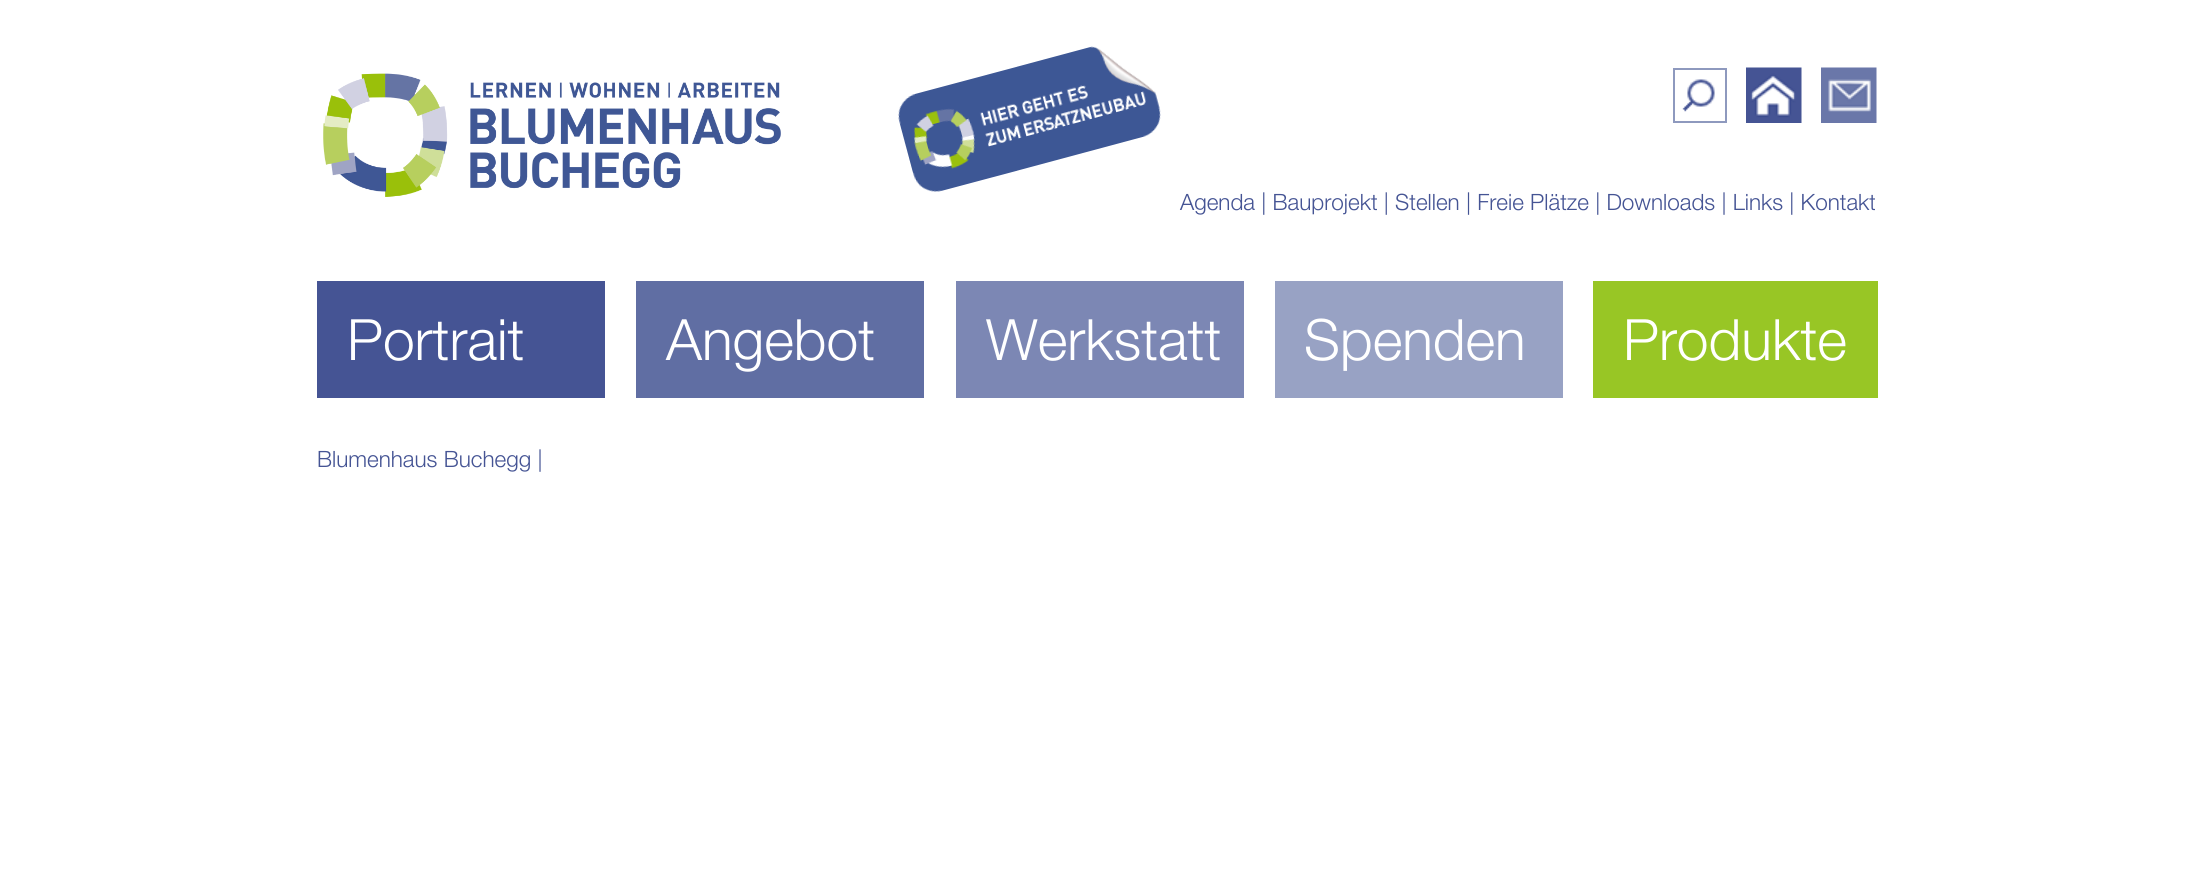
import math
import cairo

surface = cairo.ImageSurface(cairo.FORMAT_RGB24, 2192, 887)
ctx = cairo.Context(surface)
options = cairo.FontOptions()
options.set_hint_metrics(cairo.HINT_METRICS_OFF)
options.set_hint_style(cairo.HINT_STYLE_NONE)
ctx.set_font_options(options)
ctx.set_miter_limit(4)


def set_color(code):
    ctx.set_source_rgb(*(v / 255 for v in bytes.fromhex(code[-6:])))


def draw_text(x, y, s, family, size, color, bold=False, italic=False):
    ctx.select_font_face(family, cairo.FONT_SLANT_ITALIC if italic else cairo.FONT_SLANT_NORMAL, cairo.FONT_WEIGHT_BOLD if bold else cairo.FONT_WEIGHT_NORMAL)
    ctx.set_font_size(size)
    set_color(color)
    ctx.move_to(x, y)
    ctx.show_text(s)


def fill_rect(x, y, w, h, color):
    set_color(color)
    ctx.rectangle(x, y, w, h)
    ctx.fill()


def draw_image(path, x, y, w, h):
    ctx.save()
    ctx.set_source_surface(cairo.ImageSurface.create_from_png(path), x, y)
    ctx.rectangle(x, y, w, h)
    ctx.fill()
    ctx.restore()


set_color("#ffffff")
ctx.paint()
draw_image("assets/img1.png", 323, 73, 458, 124)
draw_image("assets/img2.png", 898, 46, 263, 146)
draw_image("assets/img3.png", 1682, 79, 33, 33)
ctx.rectangle(1674, 69, 52, 53)
set_color("#8e99be")
ctx.stroke()
draw_image("assets/img4.png", 1746, 67, 56, 56)
draw_image("assets/img5.png", 1821, 67, 56, 56)
draw_text(1180, 210, "Agenda | Bauprojekt | Stellen | Freie Plätze | Downloads | Links | Kontakt", "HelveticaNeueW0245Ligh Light", 22.5, "#455494")
fill_rect(317, 281, 288, 117, "#455494")
draw_text(347, 360, "Portrait", "HelveticaNeueW0245Ligh Light", 57, "#ffffff")
fill_rect(636, 281, 288, 117, "#606ea3")
draw_text(666, 360, "Angebot", "HelveticaNeueW0245Ligh Light", 57, "#ffffff")
fill_rect(956, 281, 288, 117, "#7c87b4")
draw_text(986, 360, "Werkstatt", "HelveticaNeueW0245Ligh Light", 57, "#ffffff")
fill_rect(1275, 281, 288, 117, "#98a2c4")
draw_text(1304, 360, "Spenden", "HelveticaNeueW0245Ligh Light", 57, "#ffffff")
fill_rect(1593, 281, 285, 117, "#98c625")
draw_text(1623, 360, "Produkte", "HelveticaNeueW0245Ligh Light", 57, "#ffffff")
draw_text(317, 467, "Blumenhaus Buchegg |", "HelveticaNeueW0245Ligh Light", 22.5, "#455494")
surface.write_to_png("output.png")
